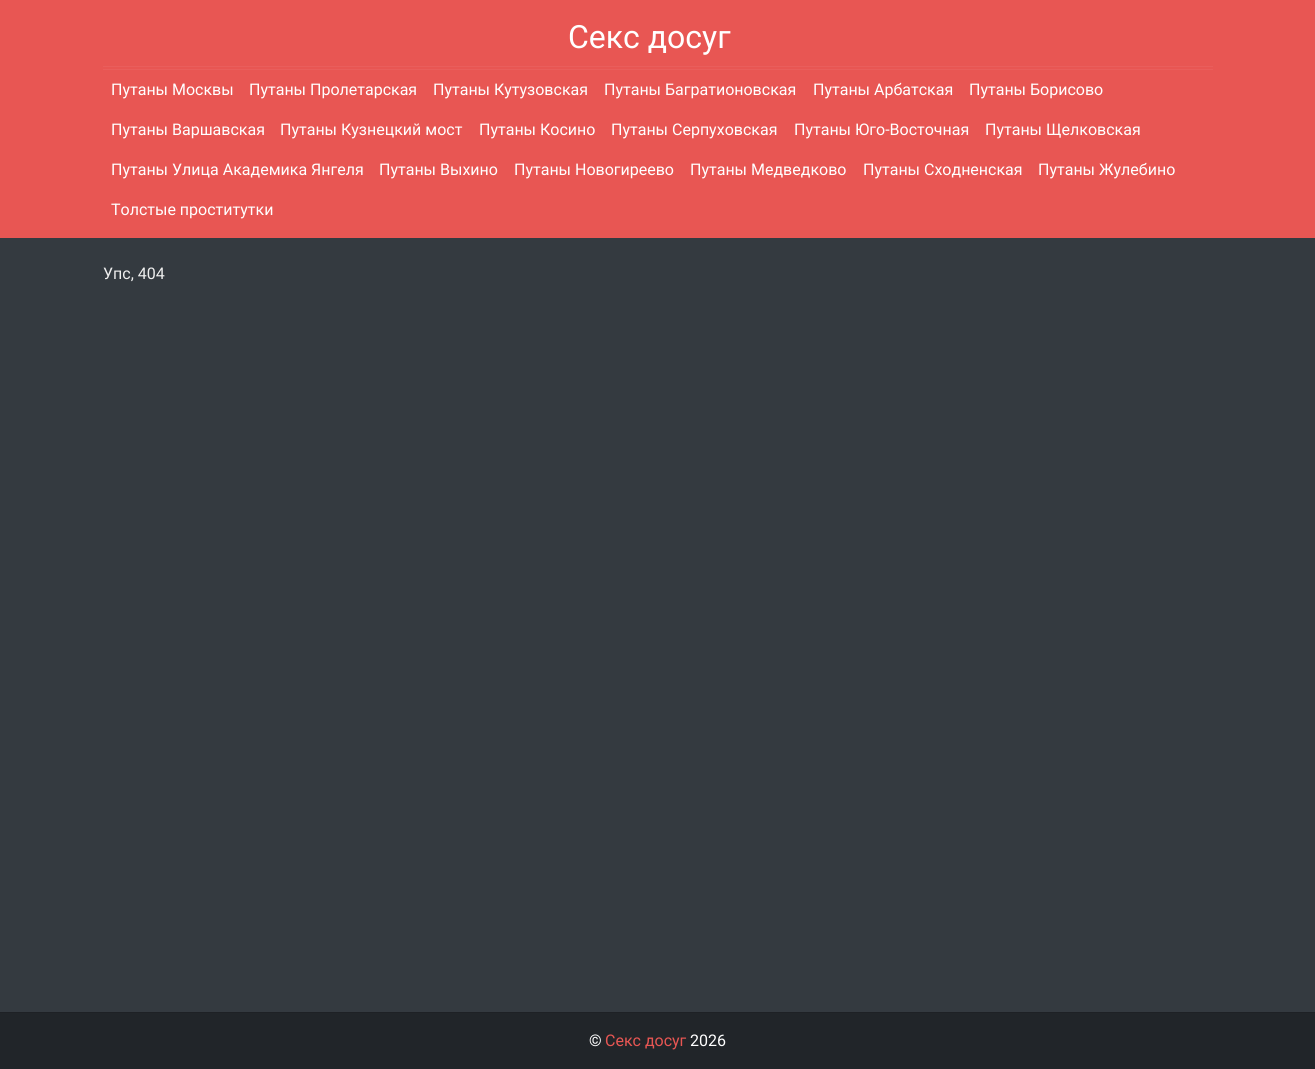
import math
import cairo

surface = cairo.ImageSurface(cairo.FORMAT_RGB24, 1315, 1069)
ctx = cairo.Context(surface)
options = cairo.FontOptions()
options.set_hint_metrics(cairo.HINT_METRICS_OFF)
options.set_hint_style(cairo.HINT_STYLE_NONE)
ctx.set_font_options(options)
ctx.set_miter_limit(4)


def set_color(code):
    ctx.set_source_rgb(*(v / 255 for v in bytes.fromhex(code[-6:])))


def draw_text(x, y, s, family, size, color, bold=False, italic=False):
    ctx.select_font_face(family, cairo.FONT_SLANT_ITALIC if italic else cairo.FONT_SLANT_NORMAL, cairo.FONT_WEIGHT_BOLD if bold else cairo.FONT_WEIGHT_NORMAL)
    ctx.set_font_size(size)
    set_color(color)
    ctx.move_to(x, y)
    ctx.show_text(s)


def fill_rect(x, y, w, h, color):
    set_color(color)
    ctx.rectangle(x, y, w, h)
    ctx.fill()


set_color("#343a40")
ctx.paint()
fill_rect(0, 0, 1315, 238, "#e85653")
draw_text(568, 48, "Секс досуг", "Roboto", 32, "#ffffff")
fill_rect(103, 66, 1110, 1, "#e95e5c")
fill_rect(103, 69, 1110, 1, "#e95e5c")
draw_text(111, 95, "Путаны Москвы", "Roboto", 16, "#ffffff")
draw_text(249, 95, "Путаны Пролетарская", "Roboto", 16, "#ffffff")
draw_text(433, 95, "Путаны Кутузовская", "Roboto", 16, "#ffffff")
draw_text(604, 95, "Путаны Багратионовская", "Roboto", 16, "#ffffff")
draw_text(813, 95, "Путаны Арбатская", "Roboto", 16, "#ffffff")
draw_text(969, 95, "Путаны Борисово", "Roboto", 16, "#ffffff")
draw_text(111, 135, "Путаны Варшавская", "Roboto", 16, "#ffffff")
draw_text(280, 135, "Путаны Кузнецкий мост", "Roboto", 16, "#ffffff")
draw_text(479, 135, "Путаны Косино", "Roboto", 16, "#ffffff")
draw_text(611, 135, "Путаны Серпуховская", "Roboto", 16, "#ffffff")
draw_text(794, 135, "Путаны Юго-Восточная", "Roboto", 16, "#ffffff")
draw_text(985, 135, "Путаны Щелковская", "Roboto", 16, "#ffffff")
draw_text(111, 175, "Путаны Улица Академика Янгеля", "Roboto", 16, "#ffffff")
draw_text(379, 175, "Путаны Выхино", "Roboto", 16, "#ffffff")
draw_text(514, 175, "Путаны Новогиреево", "Roboto", 16, "#ffffff")
draw_text(690, 175, "Путаны Медведково", "Roboto", 16, "#ffffff")
draw_text(863, 175, "Путаны Сходненская", "Roboto", 16, "#ffffff")
draw_text(1038, 175, "Путаны Жулебино", "Roboto", 16, "#ffffff")
draw_text(111, 215, "Толстые проститутки", "Roboto", 16, "#ffffff")
draw_text(103, 279, "Упс, 404", "Roboto", 16, "#eeeeee")
fill_rect(0, 1013, 1315, 56, "#212529")
fill_rect(0, 1012, 1315, 1, "#1e2125")
draw_text(589, 1046, "©", "Roboto", 16, "#ffffff")
draw_text(605, 1046, "Секс досуг", "Roboto", 16, "#e85653")
draw_text(690, 1046, "2026", "Roboto", 16, "#ffffff")
surface.write_to_png("output.png")
